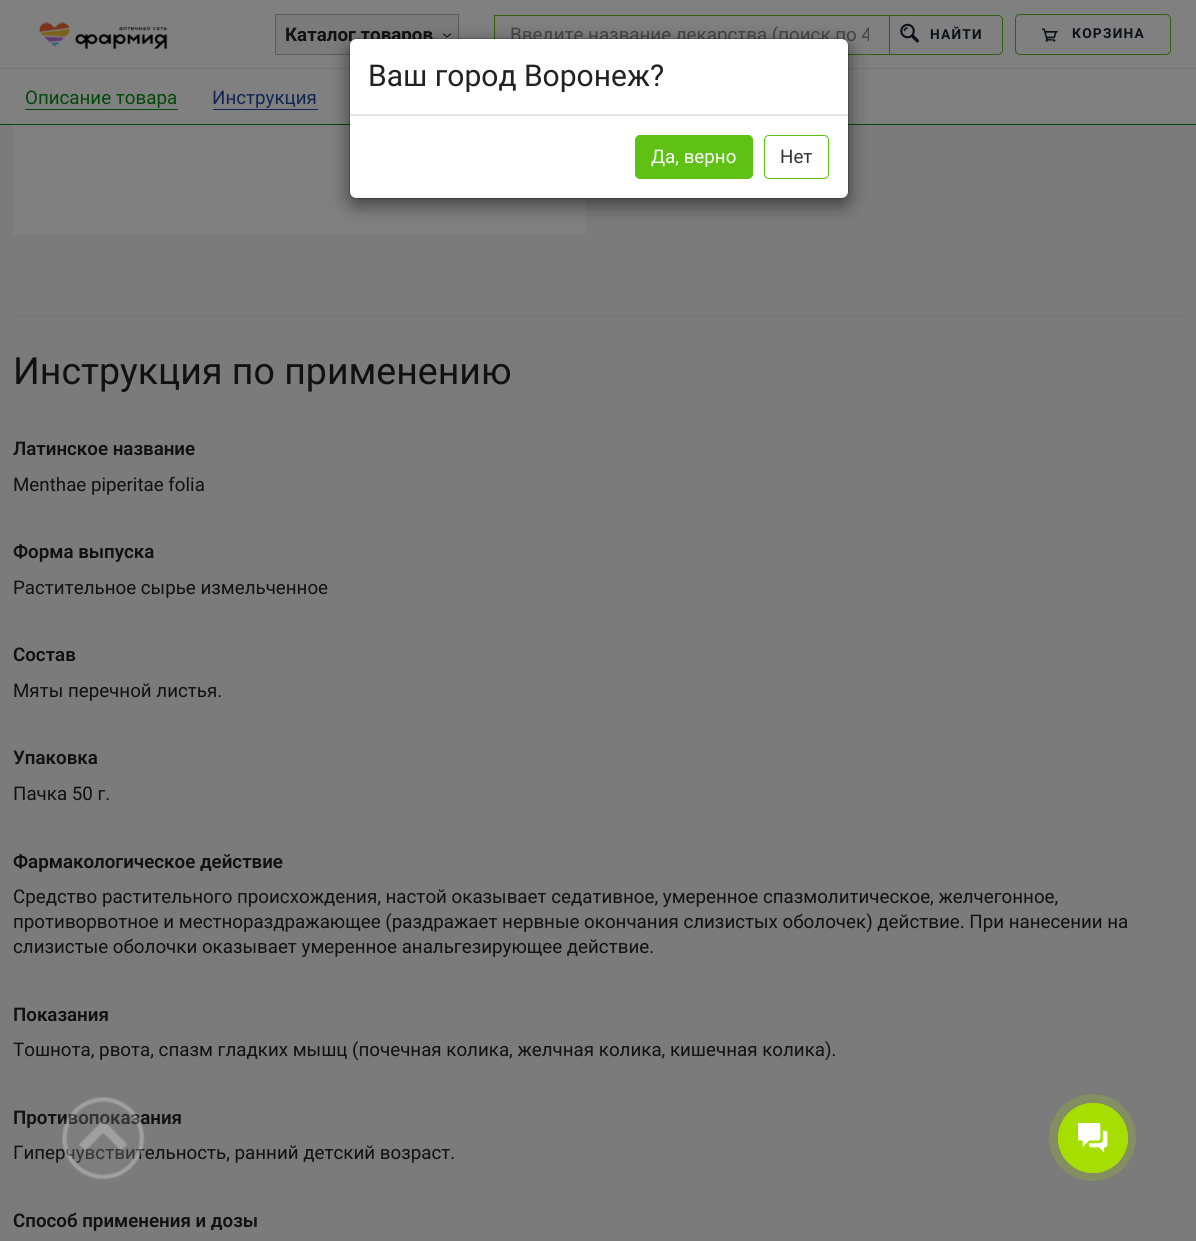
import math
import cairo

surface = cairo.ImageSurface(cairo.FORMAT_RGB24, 1196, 1241)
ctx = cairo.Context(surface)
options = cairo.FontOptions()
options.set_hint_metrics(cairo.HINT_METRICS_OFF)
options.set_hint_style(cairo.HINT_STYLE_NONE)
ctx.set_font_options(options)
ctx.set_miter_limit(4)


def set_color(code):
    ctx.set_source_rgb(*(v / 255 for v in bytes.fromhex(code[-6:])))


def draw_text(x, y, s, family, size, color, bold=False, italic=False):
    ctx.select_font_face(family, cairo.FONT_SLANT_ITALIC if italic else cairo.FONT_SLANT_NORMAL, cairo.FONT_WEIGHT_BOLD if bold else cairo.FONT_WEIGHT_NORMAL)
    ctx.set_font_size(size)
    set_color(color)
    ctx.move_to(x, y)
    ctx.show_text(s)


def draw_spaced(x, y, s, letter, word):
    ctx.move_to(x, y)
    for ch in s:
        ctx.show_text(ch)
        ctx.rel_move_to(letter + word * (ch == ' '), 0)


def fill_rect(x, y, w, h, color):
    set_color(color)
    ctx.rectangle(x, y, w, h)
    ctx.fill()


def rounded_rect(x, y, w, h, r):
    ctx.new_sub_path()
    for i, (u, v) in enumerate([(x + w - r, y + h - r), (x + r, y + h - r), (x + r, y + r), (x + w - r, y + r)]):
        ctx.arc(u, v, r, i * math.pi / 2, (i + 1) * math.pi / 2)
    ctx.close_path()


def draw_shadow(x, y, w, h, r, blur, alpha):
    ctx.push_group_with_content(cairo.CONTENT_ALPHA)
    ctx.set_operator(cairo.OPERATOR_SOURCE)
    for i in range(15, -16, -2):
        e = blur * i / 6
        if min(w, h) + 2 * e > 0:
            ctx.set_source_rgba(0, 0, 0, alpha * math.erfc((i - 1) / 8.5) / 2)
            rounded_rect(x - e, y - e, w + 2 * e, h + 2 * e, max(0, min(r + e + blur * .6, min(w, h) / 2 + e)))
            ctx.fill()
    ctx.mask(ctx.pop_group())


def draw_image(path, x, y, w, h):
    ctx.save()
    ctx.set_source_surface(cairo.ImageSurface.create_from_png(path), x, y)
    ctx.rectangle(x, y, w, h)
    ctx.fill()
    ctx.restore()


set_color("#7b7b7b")
ctx.paint()
fill_rect(0, 0, 1196, 68, "#808080")
set_color("#7b7b7b")
ctx.rectangle(275.5, 14.5, 183, 40)
ctx.fill_preserve()
set_color("#5c5c5c")
ctx.set_line_width(1)
ctx.stroke()
draw_text(285, 41, "Каталог товаров", "Roboto", 18.75, "#111111", bold=True)
draw_image("assets/img1.png", 443, 33, 8, 5)
fill_rect(0, 68, 1196, 1, "#767676")
draw_image("assets/img2.png", 39, 22, 129, 28)
fill_rect(494, 15, 395, 1, "#30610a")
fill_rect(848, 54, 41, 1, "#30610a")
fill_rect(494, 15, 1, 24, "#30610a")
ctx.save()
ctx.rectangle(510, 24, 359, 22)
ctx.clip()
draw_text(510, 41, "Введите название лекарства (поиск по 4", "Roboto", 18.75, "#444444")
ctx.restore()
ctx.new_path()
ctx.move_to(889.5, 15.5)
ctx.line_to(998, 15.5)
ctx.curve_to(1000.5, 15.5, 1002.5, 17.5, 1002.5, 20)
ctx.line_to(1002.5, 50)
ctx.curve_to(1002.5, 52.5, 1000.5, 54.5, 998, 54.5)
ctx.line_to(889.5, 54.5)
ctx.close_path()
ctx.stroke()
draw_image("assets/img3.png", 900, 23, 19, 20)
ctx.set_font_size(13.75)
set_color("#0b1018")
draw_spaced(930, 39, "НАЙТИ", 1.25, 0)
rounded_rect(1015.5, 14.5, 155, 40, 4.5)
set_color("#30610a")
ctx.stroke()
draw_image("assets/img4.png", 1041, 28, 17, 14)
set_color("#0b1018")
draw_spaced(1072, 38, "КОРЗИНА", 1.25, 0)
fill_rect(0, 69, 1196, 55, "#808080")
fill_rect(0, 124, 1196, 1, "#004908")
draw_text(25, 104, "Описание товара", "Roboto", 18.75, "#004908")
fill_rect(25, 109, 153, 1, "#004908")
draw_text(212, 104, "Инструкция", "Roboto", 18.75, "#102653")
fill_rect(213, 109, 105, 1, "#102653")
fill_rect(13, 125, 573, 110, "#808080")
fill_rect(13, 316, 1171, 1, "#767676")
draw_text(13, 384, "Инструкция по применению", "Roboto", 37.5, "#111111")
fill_rect(13, 425, 1171, 1, "#777777")
draw_text(13, 455, "Латинское название", "Roboto SemiBold", 18.75, "#111111")
draw_text(13, 491, "Menthae piperitae folia", "Roboto", 18.75, "#111111")
fill_rect(13, 529, 1171, 1, "#777777")
draw_text(13, 558, "Форма выпуска", "Roboto SemiBold", 18.75, "#111111")
draw_text(13, 594, "Растительное сырье измельченное", "Roboto", 18.75, "#111111")
fill_rect(13, 631, 1171, 1, "#777777")
draw_text(13, 661, "Состав", "Roboto SemiBold", 18.75, "#111111")
draw_text(13, 697, "Мяты перечной листья.", "Roboto", 18.75, "#111111")
fill_rect(13, 735, 1171, 1, "#777777")
draw_text(13, 764, "Упаковка", "Roboto SemiBold", 18.75, "#111111")
draw_text(13, 800, "Пачка 50 г.", "Roboto", 18.75, "#111111")
fill_rect(13, 838, 1171, 1, "#777777")
draw_text(13, 868, "Фармакологическое действие", "Roboto SemiBold", 18.75, "#111111")
draw_text(13, 903, "Средство растительного происхождения, настой оказывает седативное, умеренное спазмолитическое, желчегонное,", "Roboto", 18.75, "#111111")
draw_text(13, 928, "противорвотное и местнораздражающее (раздражает нервные окончания слизистых оболочек) действие. При нанесении на", "Roboto", 18.75, "#111111")
draw_text(13, 953, "слизистые оболочки оказывает умеренное анальгезирующее действие.", "Roboto", 18.75, "#111111")
fill_rect(13, 991, 1171, 1, "#777777")
draw_text(13, 1021, "Показания", "Roboto SemiBold", 18.75, "#111111")
draw_text(13, 1056, "Тошнота, рвота, спазм гладких мышц (почечная колика, желчная колика, кишечная колика).", "Roboto", 18.75, "#111111")
fill_rect(13, 1094, 1171, 1, "#777777")
draw_text(13, 1124, "Противопоказания", "Roboto SemiBold", 18.75, "#111111")
draw_text(13, 1159, "Гиперчувствительность, ранний детский возраст.", "Roboto", 18.75, "#111111")
fill_rect(13, 1198, 1171, 1, "#777777")
draw_text(13, 1227, "Способ применения и дозы", "Roboto SemiBold", 18.75, "#111111")
set_color("#000000")
draw_shadow(349, 44, 500, 161, 8, 9.5, 0.5)
set_color("#ffffff")
rounded_rect(350, 39, 498, 159, 6)
ctx.fill()
rounded_rect(349.5, 38.5, 499, 160, 7.5)
ctx.set_source_rgba(0, 0, 0, 0.2)
ctx.stroke()
fill_rect(350, 114, 498, 2, "#e5e5e5")
draw_text(368, 86, "Ваш город Воронеж?", "Roboto", 30, "#222222")
set_color("#5fc114")
rounded_rect(635.5, 135.5, 117, 43, 4.5)
ctx.fill_preserve()
ctx.stroke()
draw_text(651, 163, "Да, верно", "Roboto", 18.75, "#ffffff")
rounded_rect(764.5, 135.5, 64, 43, 4.5)
set_color("#5fc114")
ctx.stroke()
draw_text(780, 163, "Нет", "Roboto", 18.75, "#333333")
draw_image("assets/img5.png", 62, 1097, 83, 83)
ctx.set_source_rgba(0.647, 0.871, 0, 0.2)
ctx.arc(1092.5, 1137.5, 43.5, 0, 2 * math.pi)
ctx.fill()
ctx.arc(1093, 1138, 34.5, 0, 2 * math.pi)
set_color("#a5de00")
ctx.stroke()
ctx.arc(1093, 1138, 35, 0, 2 * math.pi)
ctx.fill()
draw_image("assets/img6.png", 1078, 1123, 30, 30)
surface.write_to_png("output.png")
